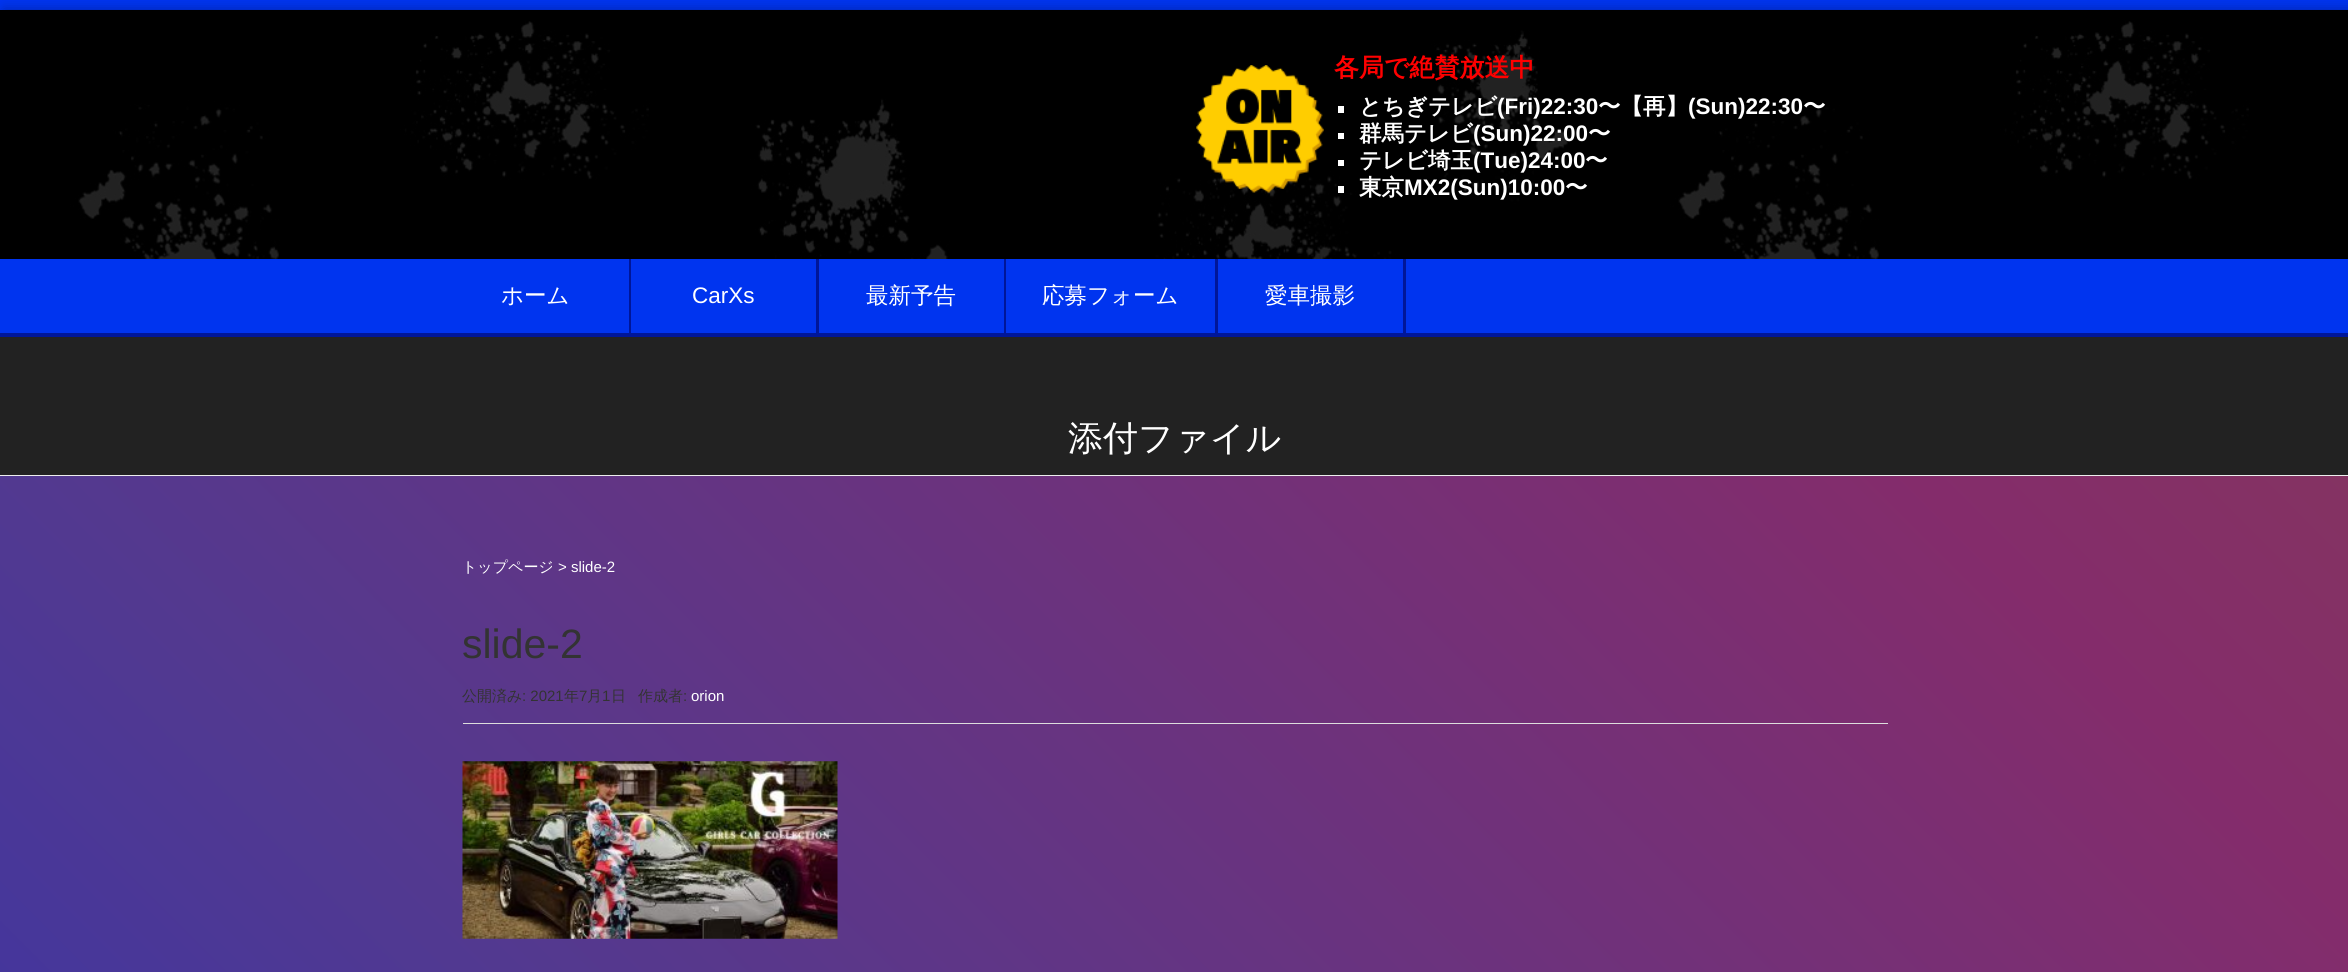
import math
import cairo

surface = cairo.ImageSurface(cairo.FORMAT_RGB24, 2348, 972)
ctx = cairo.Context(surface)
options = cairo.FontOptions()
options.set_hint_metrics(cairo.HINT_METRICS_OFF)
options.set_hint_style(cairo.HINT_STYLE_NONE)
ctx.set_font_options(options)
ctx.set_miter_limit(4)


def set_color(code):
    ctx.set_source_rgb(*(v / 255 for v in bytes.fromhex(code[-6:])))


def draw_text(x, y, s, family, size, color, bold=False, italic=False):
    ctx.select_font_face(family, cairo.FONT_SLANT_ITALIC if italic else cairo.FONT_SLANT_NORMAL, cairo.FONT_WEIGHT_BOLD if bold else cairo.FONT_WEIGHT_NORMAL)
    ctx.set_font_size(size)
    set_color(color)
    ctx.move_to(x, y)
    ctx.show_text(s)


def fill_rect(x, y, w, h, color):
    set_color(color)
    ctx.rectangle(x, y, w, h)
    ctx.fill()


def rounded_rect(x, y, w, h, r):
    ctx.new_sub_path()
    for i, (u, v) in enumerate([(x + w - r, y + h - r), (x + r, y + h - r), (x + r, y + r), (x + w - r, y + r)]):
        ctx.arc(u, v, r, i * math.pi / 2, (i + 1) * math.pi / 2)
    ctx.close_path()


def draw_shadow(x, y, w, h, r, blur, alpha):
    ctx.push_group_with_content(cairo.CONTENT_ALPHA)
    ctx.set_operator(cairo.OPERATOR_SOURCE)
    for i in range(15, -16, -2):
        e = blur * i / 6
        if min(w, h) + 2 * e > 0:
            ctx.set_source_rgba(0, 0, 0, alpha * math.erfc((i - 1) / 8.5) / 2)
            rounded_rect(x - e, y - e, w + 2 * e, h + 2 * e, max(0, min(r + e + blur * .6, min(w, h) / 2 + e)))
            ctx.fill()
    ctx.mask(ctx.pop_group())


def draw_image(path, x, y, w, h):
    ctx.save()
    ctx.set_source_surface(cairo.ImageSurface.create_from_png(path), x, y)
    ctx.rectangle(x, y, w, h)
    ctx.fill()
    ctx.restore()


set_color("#0034ef")
ctx.paint()
set_color("#000000")
draw_shadow(4, 10, 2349, 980, 0, 6, 0.3)
gradient = cairo.LinearGradient(726, 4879, 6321, -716)
gradient.add_color_stop_rgba(0, 0.314, 0.478, 0.965, 1)
gradient.add_color_stop_rgba(0.17, 0.145, 0.184, 0.722, 1)
gradient.add_color_stop_rgba(0.33, 0.322, 0.224, 0.565, 1)
gradient.add_color_stop_rgba(0.5, 0.518, 0.173, 0.42, 1)
gradient.add_color_stop_rgba(0.67, 0.525, 0.29, 0.263, 1)
gradient.add_color_stop_rgba(0.83, 0.533, 0.435, 0.157, 1)
gradient.add_color_stop_rgba(1, 0.4, 0.424, 0.365, 1)
ctx.set_source(gradient)
ctx.rectangle(0, 476, 2348, 496)
ctx.fill()
fill_rect(0, 10, 2348, 11, "#000000")
draw_image("assets/img1.png", 0, 21, 2348, 238)
draw_image("assets/img2.png", 1196, 65, 128, 128)
draw_text(1334, 76, "各局で絶賛放送中", "WenQuanYi Zen Hei", 25, "#ff0000", bold=True)
fill_rect(1338, 106, 6, 7, "#ffffff")
draw_text(1359, 114, "とちぎテレビ", "WenQuanYi Zen Hei", 22.5, "#ffffff", bold=True)
draw_text(1497, 114, "(Fri)22:30", "Liberation Sans", 22.5, "#ffffff", bold=True)
draw_text(1598, 114, "〜【再】", "WenQuanYi Zen Hei", 22.5, "#ffffff", bold=True)
draw_text(1688, 114, "(Sun)22:30", "Liberation Sans", 22.5, "#ffffff", bold=True)
draw_text(1803, 114, "〜", "WenQuanYi Zen Hei", 22.5, "#ffffff", bold=True)
fill_rect(1338, 133, 6, 6, "#ffffff")
draw_text(1359, 141, "群馬テレビ", "WenQuanYi Zen Hei", 22.5, "#ffffff", bold=True)
draw_text(1473, 141, "(Sun)22:00", "Liberation Sans", 22.5, "#ffffff", bold=True)
draw_text(1588, 141, "〜", "WenQuanYi Zen Hei", 22.5, "#ffffff", bold=True)
fill_rect(1338, 160, 6, 6, "#ffffff")
draw_text(1359, 168, "テレビ埼玉", "WenQuanYi Zen Hei", 22.5, "#ffffff", bold=True)
draw_text(1473, 168, "(Tue)24:00", "Liberation Sans", 22.5, "#ffffff", bold=True)
draw_text(1585, 168, "〜", "WenQuanYi Zen Hei", 22.5, "#ffffff", bold=True)
fill_rect(1338, 186, 6, 7, "#ffffff")
draw_text(1359, 195, "東京", "WenQuanYi Zen Hei", 22.5, "#ffffff", bold=True)
draw_text(1404, 195, "MX2(Sun)10:00", "Liberation Sans", 22.5, "#ffffff", bold=True)
draw_text(1565, 195, "〜", "WenQuanYi Zen Hei", 22.5, "#ffffff", bold=True)
fill_rect(0, 259, 2348, 74, "#0034ef")
fill_rect(0, 333, 2348, 4, "#001699")
fill_rect(629, 259, 2, 74, "#001699")
draw_text(501, 303, "ホーム", "WenQuanYi Zen Hei Medium", 22.5, "#ffffff")
fill_rect(816, 259, 3, 74, "#001699")
draw_text(692, 303, "CarXs", "Liberation Sans", 22.5, "#ffffff")
fill_rect(1004, 259, 2, 74, "#001699")
draw_text(866, 303, "最新予告", "WenQuanYi Zen Hei Medium", 22.5, "#ffffff")
fill_rect(1215, 259, 3, 74, "#001699")
draw_text(1042, 303, "応募フォーム", "WenQuanYi Zen Hei Medium", 22.5, "#ffffff")
fill_rect(1403, 259, 3, 74, "#001699")
draw_text(1265, 303, "愛車撮影", "WenQuanYi Zen Hei Medium", 22.5, "#ffffff")
fill_rect(0, 337, 2348, 138, "#222222")
fill_rect(0, 475, 2348, 1, "#eeeeee")
draw_text(1068, 450, "添付ファイル", "WenQuanYi Zen Hei Medium", 35, "#ffffff")
draw_text(462, 572, "トップページ", "WenQuanYi Zen Hei Medium", 15, "#ffffff")
draw_text(558, 572, "> slide-2", "Liberation Sans", 15, "#ffffff")
draw_text(462, 658, "slide-2", "Liberation Sans", 41, "#333333")
fill_rect(463, 723, 1425, 1, "#dddddd")
draw_text(462, 701, "公開済み", "WenQuanYi Zen Hei Medium", 15, "#333333")
draw_text(522, 701, ": 2021", "Liberation Sans", 15, "#333333")
draw_text(564, 701, "年", "WenQuanYi Zen Hei Medium", 15, "#333333")
draw_text(579, 701, "7", "Liberation Sans", 15, "#333333")
draw_text(587, 701, "月", "WenQuanYi Zen Hei Medium", 15, "#333333")
draw_text(602, 701, "1", "Liberation Sans", 15, "#333333")
draw_text(611, 701, "日", "WenQuanYi Zen Hei Medium", 15, "#333333")
draw_text(638, 701, "作成者", "WenQuanYi Zen Hei Medium", 15, "#333333")
draw_text(683, 701, ":", "Liberation Sans", 15, "#333333")
draw_text(691, 701, "orion", "Liberation Sans", 15, "#ffffff")
draw_image("assets/img3.png", 462, 761, 376, 178)
surface.write_to_png("output.png")
